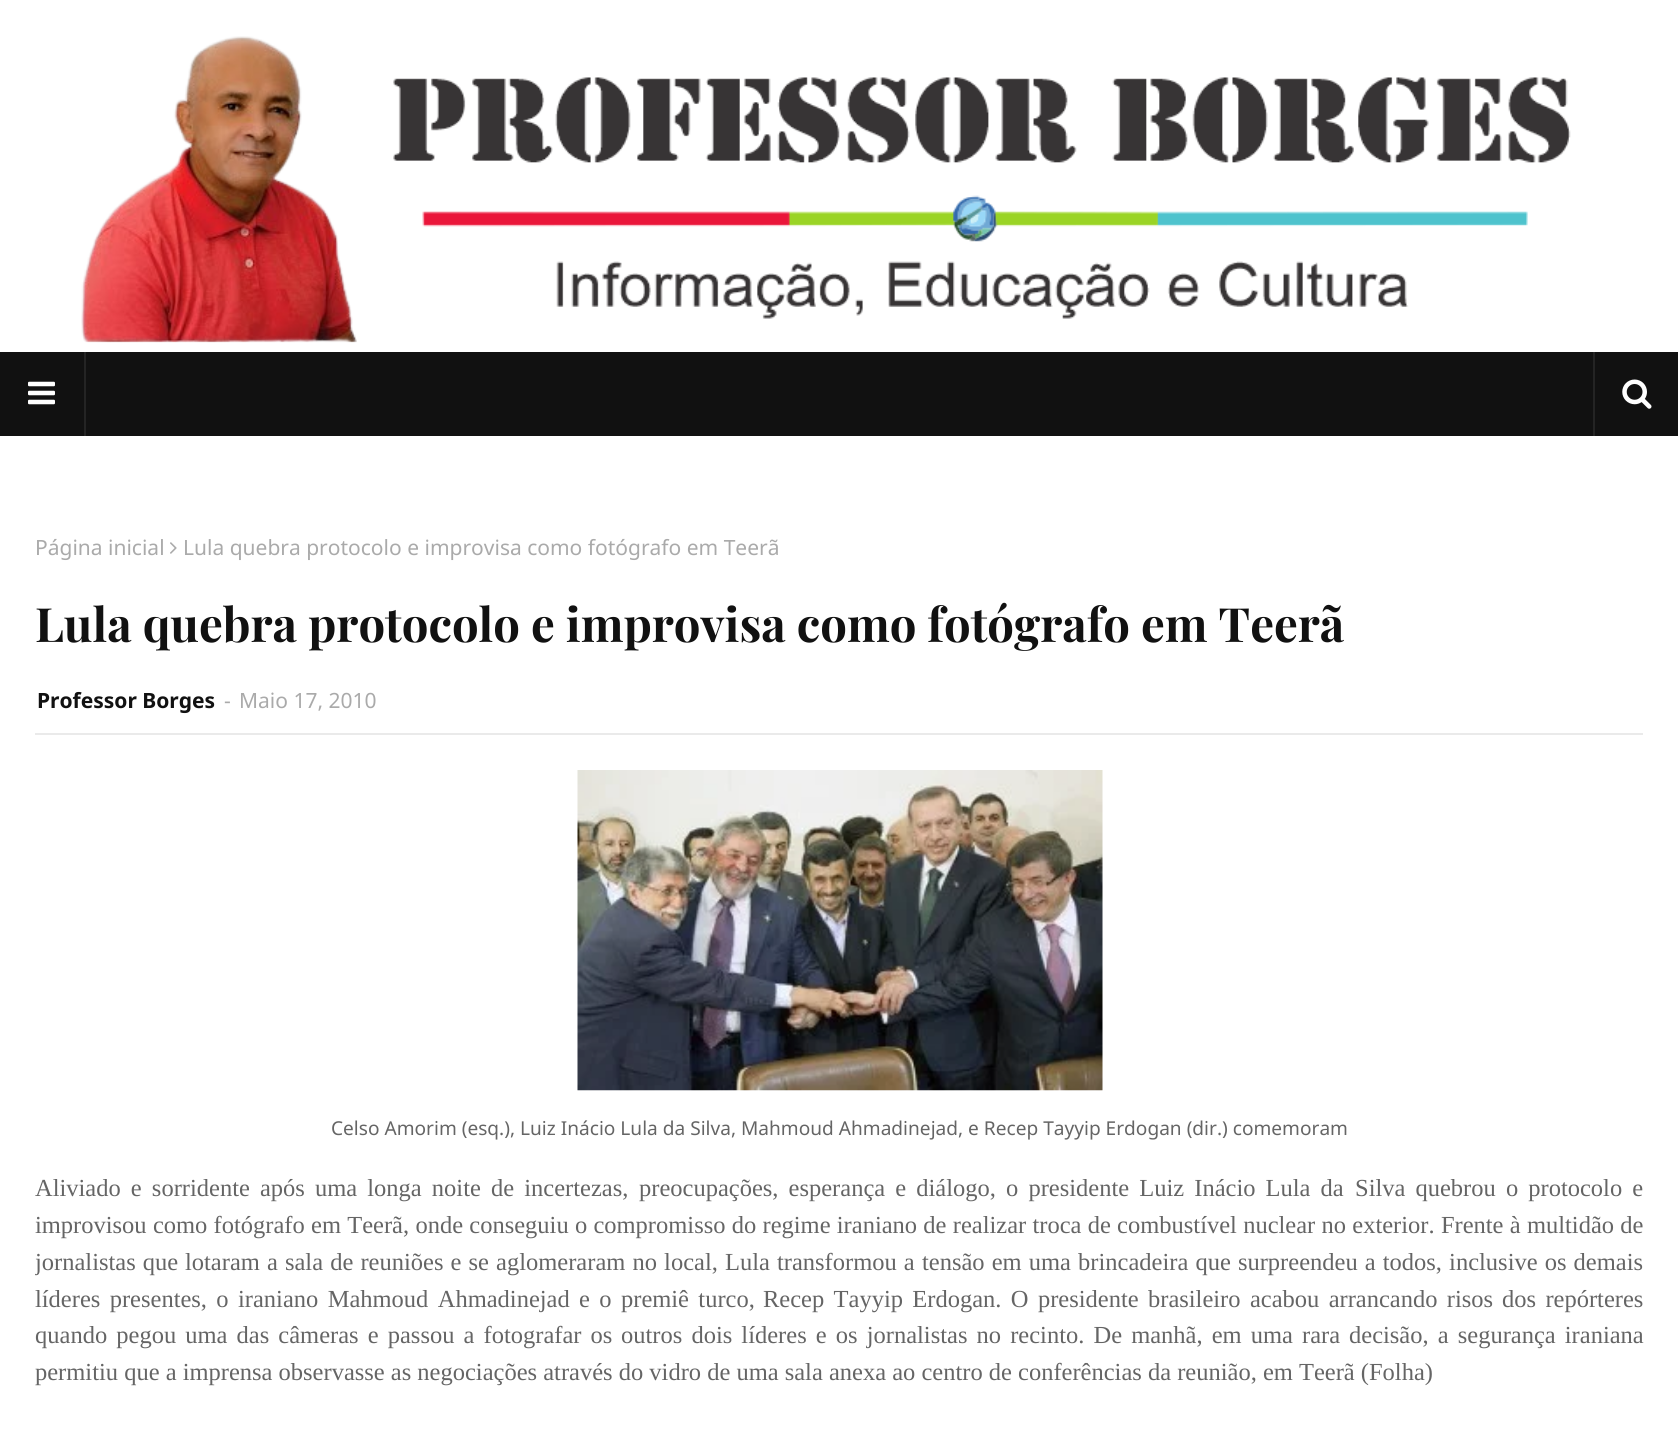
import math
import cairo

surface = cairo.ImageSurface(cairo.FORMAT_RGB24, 1678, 1451)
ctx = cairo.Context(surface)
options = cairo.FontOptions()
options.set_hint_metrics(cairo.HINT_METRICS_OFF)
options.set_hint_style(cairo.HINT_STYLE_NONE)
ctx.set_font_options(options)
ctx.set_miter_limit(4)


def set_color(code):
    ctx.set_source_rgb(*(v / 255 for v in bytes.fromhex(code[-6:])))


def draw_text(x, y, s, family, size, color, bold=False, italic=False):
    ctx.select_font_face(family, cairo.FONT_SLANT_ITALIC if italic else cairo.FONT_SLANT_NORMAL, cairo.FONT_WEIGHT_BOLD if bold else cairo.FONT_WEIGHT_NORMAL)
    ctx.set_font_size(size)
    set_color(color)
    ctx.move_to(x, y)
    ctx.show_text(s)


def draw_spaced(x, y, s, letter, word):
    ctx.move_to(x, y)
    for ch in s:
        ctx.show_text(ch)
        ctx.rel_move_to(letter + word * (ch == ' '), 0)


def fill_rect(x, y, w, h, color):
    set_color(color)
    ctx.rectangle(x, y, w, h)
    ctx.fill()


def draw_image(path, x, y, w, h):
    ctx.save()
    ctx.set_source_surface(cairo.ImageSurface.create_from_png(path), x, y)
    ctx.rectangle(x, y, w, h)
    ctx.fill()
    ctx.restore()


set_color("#ffffff")
ctx.paint()
draw_image("assets/img1.png", 81, 36, 1490, 307)
fill_rect(0, 352, 1678, 84, "#111111")
fill_rect(84, 352, 2, 84, "#242424")
draw_image("assets/img2.png", 28, 381, 27, 24)
fill_rect(1593, 352, 2, 84, "#242424")
draw_image("assets/img3.png", 1622, 379, 30, 30)
draw_text(35, 555, "Página inicial", "Noto Sans", 21, "#aaaaaa")
draw_image("assets/img4.png", 170, 542, 7, 12)
draw_text(183, 555, "Lula quebra protocolo e improvisa como fotógrafo em Teerã", "Noto Sans", 21, "#aaaaaa")
draw_text(35, 642, "Lula quebra protocolo e improvisa como fotógrafo em Teerã", "Playfair Display", 47.25, "#111111", bold=True)
fill_rect(35, 733, 1608, 2, "#eaeaea")
draw_text(37, 708, "Professor Borges", "Noto Sans", 21, "#111111", bold=True)
draw_text(224, 708, "-", "Noto Sans", 21, "#aaaaaa")
draw_text(239, 708, "Maio 17, 2010", "Noto Sans", 21, "#aaaaaa")
draw_image("assets/img5.png", 577, 770, 526, 321)
draw_text(331, 1135, "Celso Amorim (esq.), Luiz Inácio Lula da Silva, Mahmoud Ahmadinejad, e Recep Tayyip Erdogan (dir.) comemoram", "Noto Sans", 19.1, "#656565")
ctx.select_font_face("Liberation Serif")
ctx.set_font_size(24.5)
draw_spaced(35, 1196, "Aliviado e sorridente após uma longa noite de incertezas,", 0, 4)
draw_spaced(639, 1196, "preocupações, esperança e diálogo, o presidente Luiz Inácio Lula da", 0, 4)
draw_spaced(1355, 1196, "Silva quebrou o protocolo e", 0, 4)
draw_spaced(35, 1233, "improvisou como fotógrafo em Teerã, onde conseguiu o compromisso do regime iraniano de realizar troca de combustível nuclear no exterior. Frente à multidão de", 0, 0.15)
ctx.save()
ctx.rectangle(35, 735, 1608, 681)
ctx.clip()
draw_spaced(35, 1270, "jornalistas que", 0, 1)
ctx.restore()
draw_spaced(185, 1270, "lotaram a sala de reuniões e se aglomeraram no local, Lula transformou a", 0, 1)
draw_spaced(922, 1270, "tensão em uma brincadeira que surpreendeu a todos, inclusive os demais", 0, 1)
draw_spaced(35, 1307, "líderes presentes, o iraniano Mahmoud Ahmadinejad e o premiê turco,", 0, 3.25)
draw_spaced(763, 1307, "Recep Tayyip Erdogan. O presidente brasileiro acabou arrancando risos", 0, 3.25)
draw_spaced(1502, 1307, "dos repórteres", 0, 3.25)
draw_spaced(35, 1343, "quando pegou uma das câmeras e passou a fotografar os", 0, 3)
draw_spaced(621, 1343, "outros dois líderes e os jornalistas no recinto. De manhã, em uma rara", 0, 3)
draw_spaced(1349, 1343, "decisão, a segurança iraniana", 0, 3)
draw_text(35, 1380, "permitiu que a imprensa observasse as negociações através do vidro de uma sala anexa ao centro de conferências da reunião, em Teerã (Folha)", "Liberation Serif", 24.5, "#656565")
surface.write_to_png("output.png")
